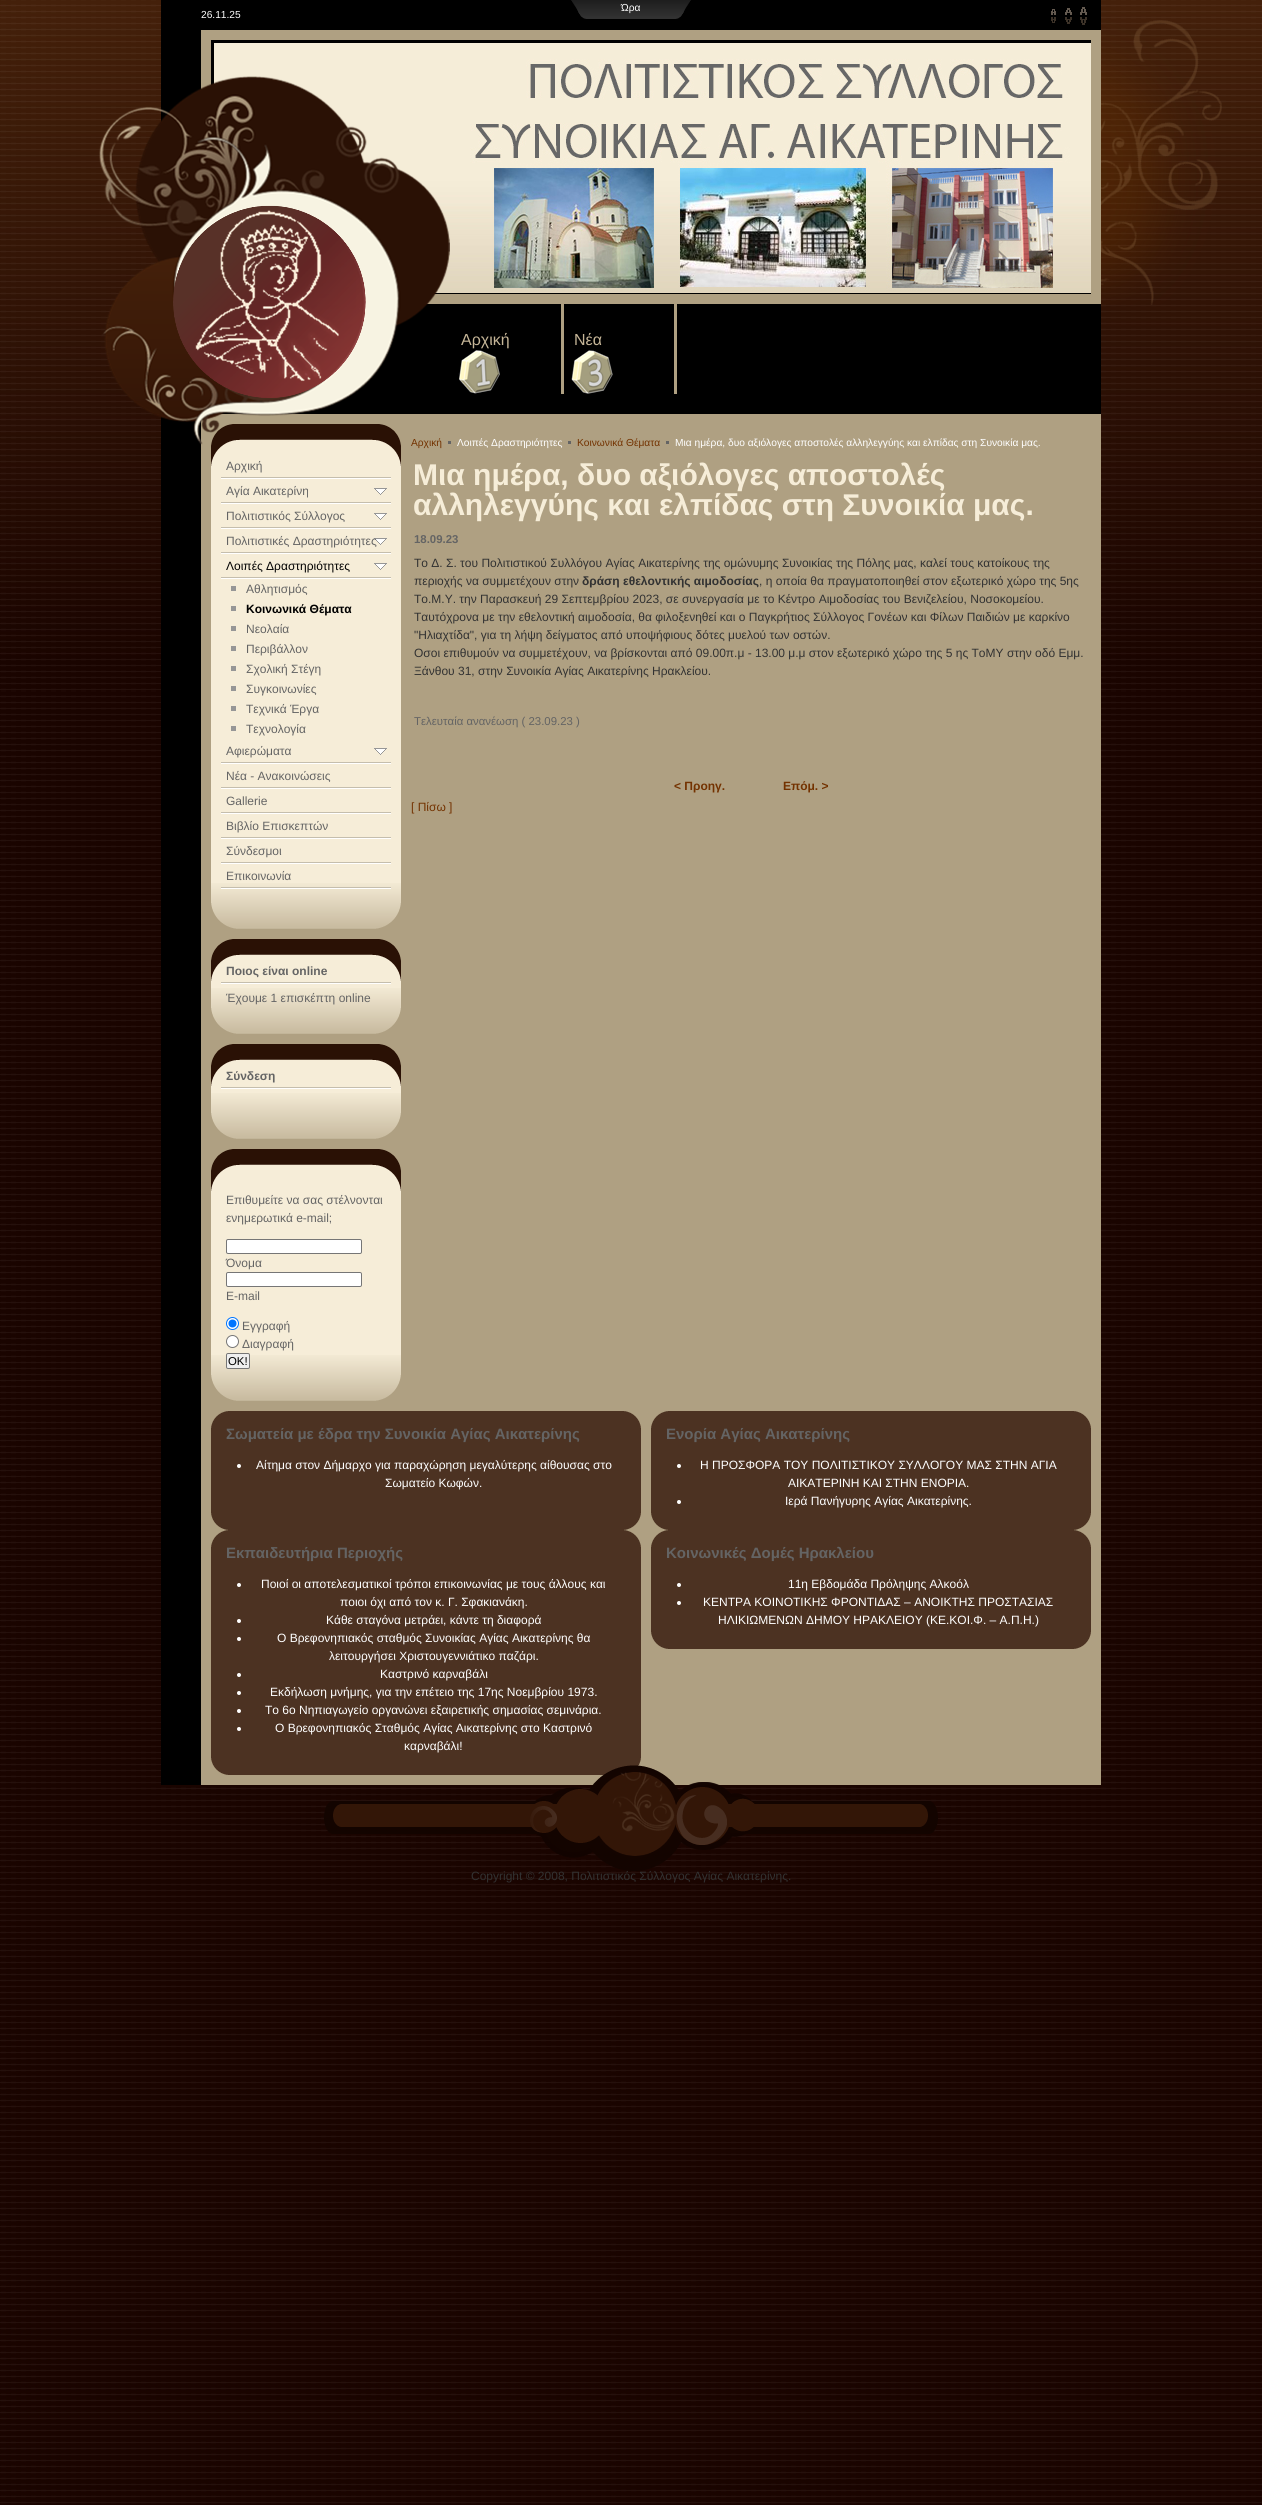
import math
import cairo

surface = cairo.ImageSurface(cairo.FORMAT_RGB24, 1262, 2505)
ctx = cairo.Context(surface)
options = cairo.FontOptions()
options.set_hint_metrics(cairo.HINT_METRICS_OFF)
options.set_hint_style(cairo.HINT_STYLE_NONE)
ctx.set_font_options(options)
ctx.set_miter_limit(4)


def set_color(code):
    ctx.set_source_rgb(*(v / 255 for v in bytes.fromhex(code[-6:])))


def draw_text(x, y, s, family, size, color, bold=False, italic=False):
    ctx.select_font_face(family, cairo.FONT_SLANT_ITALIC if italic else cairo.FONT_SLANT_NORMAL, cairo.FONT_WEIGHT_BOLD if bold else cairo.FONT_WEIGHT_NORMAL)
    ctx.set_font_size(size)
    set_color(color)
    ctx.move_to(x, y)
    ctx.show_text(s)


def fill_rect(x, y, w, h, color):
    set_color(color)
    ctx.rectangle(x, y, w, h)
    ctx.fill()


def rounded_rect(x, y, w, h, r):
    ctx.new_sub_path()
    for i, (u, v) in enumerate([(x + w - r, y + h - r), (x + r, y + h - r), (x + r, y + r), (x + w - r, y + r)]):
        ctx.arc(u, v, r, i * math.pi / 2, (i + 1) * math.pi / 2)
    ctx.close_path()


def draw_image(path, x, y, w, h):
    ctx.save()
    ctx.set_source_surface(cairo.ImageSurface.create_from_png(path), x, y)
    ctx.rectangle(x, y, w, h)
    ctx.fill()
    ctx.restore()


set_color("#ffffff")
ctx.paint()
draw_image("assets/img1.png", 0, 691, 1262, 1814)
draw_image("assets/img5.png", 0, 0, 1262, 691)
fill_rect(201, 0, 900, 30, "#000000")
draw_image("assets/img2.png", 571, 0, 20, 19)
draw_image("assets/img3.png", 591, 0, 80, 19)
draw_text(621, 11, "Ώρα", "Liberation Sans", 10.2, "#ffffff")
draw_image("assets/img4.png", 671, 0, 20, 19)
fill_rect(161, 0, 40, 1785, "#000000")
fill_rect(201, 30, 900, 1755, "#afa082")
draw_text(201, 18, "26.11.25", "Liberation Sans", 10.2, "#ffffff")
draw_image("assets/img6.png", 1051, 9, 5, 14)
draw_image("assets/img7.png", 1065, 8, 7, 16)
draw_image("assets/img8.png", 1080, 7, 7, 18)
ctx.rectangle(212.5, 41.5, 877, 251)
set_color("#000000")
ctx.set_line_width(3)
ctx.stroke()
draw_image("assets/img9.png", 214, 43, 877, 250)
draw_image("assets/img10.png", 1101, 20, 121, 285)
fill_rect(220, 304, 881, 110, "#000000")
draw_image("assets/img14.png", 211, 424, 190, 42)
draw_text(411, 446, "Αρχική", "Liberation Sans", 10.2, "#733200")
fill_rect(448, 441, 3, 3, "#646464")
draw_image("assets/img11.png", 99, 76, 351, 369)
draw_image("assets/img12.png", 458, 350, 42, 44)
fill_rect(561, 304, 3, 90, "#afa082")
draw_text(461, 345, "Αρχική", "Liberation Sans", 16, "#c6b698")
draw_image("assets/img13.png", 571, 350, 42, 44)
fill_rect(674, 304, 3, 90, "#afa082")
draw_text(574, 345, "Νέα", "Liberation Sans", 16, "#c6b698")
fill_rect(211, 466, 190, 417, "#f6edd8")
draw_image("assets/img15.png", 211, 883, 190, 46)
draw_image("assets/img16.png", 221, 477, 170, 2)
draw_text(226, 470, "Αρχική", "Liberation Sans", 12, "#646464")
draw_image("assets/img17.png", 221, 488, 170, 16)
draw_text(226, 495, "Αγία Αικατερίνη", "Liberation Sans", 12, "#646464")
draw_image("assets/img17.png", 221, 513, 170, 16)
draw_text(226, 520, "Πολιτιστικός Σύλλογος", "Liberation Sans", 12, "#646464")
draw_image("assets/img17.png", 221, 538, 170, 16)
draw_text(226, 545, "Πολιτιστικές Δραστηριότητες", "Liberation Sans", 12, "#646464")
draw_image("assets/img17.png", 221, 563, 170, 16)
draw_text(226, 570, "Λοιπές Δραστηριότητες", "Liberation Sans", 12, "#000000")
fill_rect(231, 586, 5, 5, "#969696")
draw_text(246, 593, "Αθλητισμός", "Liberation Sans", 12, "#646464")
fill_rect(231, 606, 5, 5, "#969696")
draw_text(246, 613, "Κοινωνικά Θέματα", "Liberation Sans", 12, "#000000", bold=True)
fill_rect(231, 626, 5, 5, "#969696")
draw_text(246, 633, "Νεολαία", "Liberation Sans", 12, "#646464")
fill_rect(231, 646, 5, 5, "#969696")
draw_text(246, 653, "Περιβάλλον", "Liberation Sans", 12, "#646464")
fill_rect(231, 666, 5, 5, "#969696")
draw_text(246, 673, "Σχολική Στέγη", "Liberation Sans", 12, "#646464")
fill_rect(231, 686, 5, 5, "#969696")
draw_text(246, 693, "Συγκοινωνίες", "Liberation Sans", 12, "#646464")
fill_rect(231, 706, 5, 5, "#969696")
draw_text(246, 713, "Τεχνικά Έργα", "Liberation Sans", 12, "#646464")
fill_rect(231, 726, 5, 5, "#969696")
draw_text(246, 733, "Τεχνολογία", "Liberation Sans", 12, "#646464")
draw_image("assets/img17.png", 221, 748, 170, 16)
draw_text(226, 755, "Αφιερώματα", "Liberation Sans", 12, "#646464")
draw_image("assets/img16.png", 221, 787, 170, 2)
draw_text(226, 780, "Νέα - Ανακοινώσεις", "Liberation Sans", 12, "#646464")
draw_image("assets/img16.png", 221, 812, 170, 2)
draw_text(226, 805, "Gallerie", "Liberation Sans", 12, "#646464")
draw_image("assets/img16.png", 221, 837, 170, 2)
draw_text(226, 830, "Βιβλίο Επισκεπτών", "Liberation Sans", 12, "#646464")
draw_image("assets/img16.png", 221, 862, 170, 2)
draw_text(226, 855, "Σύνδεσμοι", "Liberation Sans", 12, "#646464")
draw_image("assets/img16.png", 221, 887, 170, 2)
draw_text(226, 880, "Επικοινωνία", "Liberation Sans", 12, "#646464")
fill_rect(211, 981, 190, 7, "#f6edd8")
draw_image("assets/img14.png", 211, 939, 190, 42)
draw_image("assets/img15.png", 211, 988, 190, 46)
draw_image("assets/img16.png", 221, 982, 170, 2)
draw_text(226, 975, "Ποιος είναι online", "Liberation Sans", 12, "#646464", bold=True)
draw_text(226, 1002, "Έχουμε 1 επισκέπτη online", "Liberation Sans", 12, "#646464")
fill_rect(211, 1086, 190, 7, "#f6edd8")
draw_image("assets/img14.png", 211, 1044, 190, 42)
draw_image("assets/img15.png", 211, 1093, 190, 46)
draw_image("assets/img16.png", 221, 1087, 170, 2)
draw_text(226, 1080, "Σύνδεση", "Liberation Sans", 12, "#646464", bold=True)
fill_rect(211, 1191, 190, 164, "#f6edd8")
draw_image("assets/img14.png", 211, 1149, 190, 42)
draw_image("assets/img15.png", 211, 1355, 190, 46)
draw_text(226, 1204, "Επιθυμείτε να σας στέλνονται", "Liberation Sans", 12, "#646464")
draw_text(226, 1222, "ενημερωτικά e-mail;", "Liberation Sans", 12, "#646464")
set_color("#ffffff")
rounded_rect(226.5, 1239.5, 135, 14, 1.5)
ctx.fill_preserve()
set_color("#767676")
ctx.set_line_width(1)
ctx.stroke()
draw_text(226, 1267, "Όνομα", "Liberation Sans", 12, "#646464")
set_color("#ffffff")
rounded_rect(226.5, 1272.5, 135, 14, 1.5)
ctx.fill_preserve()
set_color("#767676")
ctx.stroke()
draw_text(226, 1300, "E-mail", "Liberation Sans", 12, "#646464")
set_color("#ffffff")
ctx.new_path()
ctx.arc(232.5, 1323.5, 6, 0, 2 * math.pi)
ctx.fill_preserve()
set_color("#0075ff")
ctx.stroke()
ctx.arc(232.5, 1323.5, 4, 0, 2 * math.pi)
ctx.fill()
draw_text(242, 1330, "Εγγραφή", "Liberation Sans", 12, "#646464")
set_color("#ffffff")
ctx.new_path()
ctx.arc(232.5, 1341.5, 6, 0, 2 * math.pi)
ctx.fill_preserve()
set_color("#767676")
ctx.stroke()
draw_text(242, 1348, "Διαγραφή", "Liberation Sans", 12, "#646464")
set_color("#efefef")
rounded_rect(226.5, 1353.5, 23, 15, 1.5)
ctx.fill_preserve()
set_color("#767676")
ctx.stroke()
draw_text(228, 1365, "ΟΚ!", "Liberation Sans", 11.4, "#000000")
draw_text(457, 446, "Λοιπές Δραστηριότητες", "Liberation Sans", 10.2, "#ffffff")
draw_text(577, 446, "Κοινωνικά Θέματα", "Liberation Sans", 10.2, "#733200")
fill_rect(568, 441, 3, 3, "#646464")
fill_rect(666, 441, 3, 3, "#646464")
draw_text(675, 446, "Μια ημέρα, δυο αξιόλογες αποστολές αλληλεγγύης και ελπίδας στη Συνοικία μας.", "Liberation Sans", 10.2, "#ffffff")
draw_text(413, 485, "Μια ημέρα, δυο αξιόλογες αποστολές", "Liberation Sans", 30, "#f6edd8", bold=True)
draw_text(413, 515, "αλληλεγγύης και ελπίδας στη Συνοικία μας.", "Liberation Sans", 30, "#f6edd8", bold=True)
draw_text(414, 543, "18.09.23", "Liberation Sans", 11.4, "#646464", bold=True)
draw_text(414, 567, "Το Δ. Σ. του Πολιτιστικού Συλλόγου Αγίας Αικατερίνης της ομώνυμης Συνοικίας της Πόλης μας, καλεί τους κατοίκους της", "Liberation Sans", 12, "#323232")
draw_text(414, 585, "περιοχής να συμμετέχουν στην", "Liberation Sans", 12, "#323232")
draw_text(582, 585, "δράση εθελοντικής αιμοδοσίας", "Liberation Sans", 12, "#323232", bold=True)
draw_text(759, 585, ", η οποία θα πραγματοποιηθεί στον εξωτερικό χώρο της 5ης", "Liberation Sans", 12, "#323232")
draw_text(414, 603, "Το.Μ.Υ. την Παρασκευή 29 Σεπτεμβρίου 2023, σε συνεργασία με το Κέντρο Αιμοδοσίας του Βενιζελείου, Νοσοκομείου.", "Liberation Sans", 12, "#323232")
draw_text(414, 621, "Ταυτόχρονα με την εθελοντική αιμοδοσία, θα φιλοξενηθεί και ο Παγκρήτιος Σύλλογος Γονέων και Φίλων Παιδιών με καρκίνο", "Liberation Sans", 12, "#323232")
draw_text(414, 639, "\"Ηλιαχτίδα\", για τη λήψη δείγματος από υποψήφιους δότες μυελού των οστών.", "Liberation Sans", 12, "#323232")
draw_text(414, 657, "Οσοι επιθυμούν να συμμετέχουν, να βρίσκονται από 09.00π.μ - 13.00 μ.μ στον εξωτερικό χώρο της 5 ης ΤοΜΥ στην οδό Εμμ.", "Liberation Sans", 12, "#323232")
draw_text(414, 675, "Ξάνθου 31, στην Συνοικία Αγίας Αικατερίνης Ηρακλείου.", "Liberation Sans", 12, "#323232")
draw_text(414, 725, "Τελευταία ανανέωση ( 23.09.23 )", "Liberation Sans", 11.4, "#646464")
draw_text(674, 790, "< Προηγ.", "Liberation Sans", 12, "#733200", bold=True)
draw_text(783, 790, "Επόμ. >", "Liberation Sans", 12, "#733200", bold=True)
draw_text(411, 811, "[ Πίσω ]", "Liberation Sans", 12, "#733200")
fill_rect(211, 1411, 430, 364, "#4c3222")
draw_image("assets/img18.png", 624, 1513, 17, 17)
draw_image("assets/img19.png", 624, 1411, 17, 17)
draw_image("assets/img20.png", 211, 1513, 17, 17)
draw_image("assets/img21.png", 211, 1411, 17, 17)
draw_text(226, 1439, "Σωματεία με έδρα την Συνοικία Αγίας Αικατερίνης", "Liberation Sans", 15, "#646464", bold=True)
set_color("#ffffff")
ctx.new_path()
ctx.arc(239, 1466, 2, 0, 2 * math.pi)
ctx.fill()
draw_text(256, 1469, "Αίτημα στον Δήμαρχο για παραχώρηση μεγαλύτερης αίθουσας στο", "Liberation Sans", 12, "#ffffff")
draw_text(385, 1487, "Σωματείο Κωφών.", "Liberation Sans", 12, "#ffffff")
draw_image("assets/img22.png", 624, 1758, 17, 9)
draw_image("assets/img19.png", 624, 1530, 17, 17)
draw_image("assets/img20.png", 211, 1758, 17, 17)
draw_image("assets/img21.png", 211, 1530, 17, 17)
draw_text(226, 1558, "Εκπαιδευτήρια Περιοχής", "Liberation Sans", 15, "#646464", bold=True)
set_color("#ffffff")
ctx.new_path()
ctx.arc(239, 1585, 2, 0, 2 * math.pi)
ctx.fill()
draw_text(261, 1588, "Ποιοί οι αποτελεσματικοί τρόποι επικοινωνίας με τους άλλους και", "Liberation Sans", 12, "#ffffff")
draw_text(340, 1606, "ποιοι όχι από τον κ. Γ. Σφακιανάκη.", "Liberation Sans", 12, "#ffffff")
ctx.new_path()
ctx.arc(239, 1621, 2, 0, 2 * math.pi)
ctx.fill()
draw_text(326, 1624, "Κάθε σταγόνα μετράει, κάντε τη διαφορά", "Liberation Sans", 12, "#ffffff")
ctx.new_path()
ctx.arc(239, 1639, 2, 0, 2 * math.pi)
ctx.fill()
draw_text(277, 1642, "Ο Βρεφονηπιακός σταθμός Συνοικίας Αγίας Αικατερίνης θα", "Liberation Sans", 12, "#ffffff")
draw_text(329, 1660, "λειτουργήσει Χριστουγεννιάτικο παζάρι.", "Liberation Sans", 12, "#ffffff")
ctx.new_path()
ctx.arc(239, 1675, 2, 0, 2 * math.pi)
ctx.fill()
draw_text(380, 1678, "Καστρινό καρναβάλι", "Liberation Sans", 12, "#ffffff")
ctx.new_path()
ctx.arc(239, 1693, 2, 0, 2 * math.pi)
ctx.fill()
draw_text(270, 1696, "Εκδήλωση μνήμης, για την επέτειο της 17ης Νοεμβρίου 1973.", "Liberation Sans", 12, "#ffffff")
ctx.new_path()
ctx.arc(239, 1711, 2, 0, 2 * math.pi)
ctx.fill()
draw_text(265, 1714, "Το 6ο Νηπιαγωγείο οργανώνει εξαιρετικής σημασίας σεμινάρια.", "Liberation Sans", 12, "#ffffff")
ctx.new_path()
ctx.arc(239, 1729, 2, 0, 2 * math.pi)
ctx.fill()
draw_text(275, 1732, "Ο Bρεφονηπιακός Σταθμός Αγίας Αικατερίνης στο Καστρινό", "Liberation Sans", 12, "#ffffff")
draw_text(404, 1750, "καρναβάλι!", "Liberation Sans", 12, "#ffffff")
fill_rect(651, 1411, 440, 238, "#4c3222")
draw_image("assets/img18.png", 1074, 1513, 17, 17)
draw_image("assets/img19.png", 1074, 1411, 17, 17)
draw_image("assets/img20.png", 651, 1513, 17, 17)
draw_image("assets/img21.png", 651, 1411, 17, 17)
draw_text(666, 1439, "Ενορία Αγίας Αικατερίνης", "Liberation Sans", 15, "#646464", bold=True)
set_color("#ffffff")
ctx.new_path()
ctx.arc(679, 1466, 2, 0, 2 * math.pi)
ctx.fill()
draw_text(700, 1469, "Η ΠΡΟΣΦΟΡΑ ΤΟΥ ΠΟΛΙΤΙΣΤΙΚΟΥ ΣΥΛΛΟΓΟΥ ΜΑΣ ΣΤΗΝ ΑΓΙΑ", "Liberation Sans", 12, "#ffffff")
draw_text(788, 1487, "ΑΙΚΑΤΕΡΙΝΗ ΚΑΙ ΣΤΗΝ ΕΝΟΡΙΑ.", "Liberation Sans", 12, "#ffffff")
ctx.new_path()
ctx.arc(679, 1502, 2, 0, 2 * math.pi)
ctx.fill()
draw_text(785, 1505, "Ιερά Πανήγυρης Αγίας Αικατερίνης.", "Liberation Sans", 12, "#ffffff")
draw_image("assets/img18.png", 1074, 1632, 17, 17)
draw_image("assets/img19.png", 1074, 1530, 17, 17)
draw_image("assets/img20.png", 651, 1632, 17, 17)
draw_image("assets/img21.png", 651, 1530, 17, 17)
draw_text(666, 1558, "Κοινωνικές Δομές Ηρακλείου", "Liberation Sans", 15, "#646464", bold=True)
set_color("#ffffff")
ctx.new_path()
ctx.arc(679, 1585, 2, 0, 2 * math.pi)
ctx.fill()
draw_text(788, 1588, "11η Εβδομάδα Πρόληψης Αλκοόλ", "Liberation Sans", 12, "#ffffff")
ctx.new_path()
ctx.arc(679, 1603, 2, 0, 2 * math.pi)
ctx.fill()
draw_text(703, 1606, "ΚΕΝΤΡΑ ΚΟΙΝΟΤΙΚΗΣ ΦΡΟΝΤΙΔΑΣ – ΑΝΟΙΚΤΗΣ ΠΡΟΣΤΑΣΙΑΣ", "Liberation Sans", 12, "#ffffff")
draw_text(718, 1624, "ΗΛΙΚΙΩΜΕΝΩΝ ΔΗΜΟΥ ΗΡΑΚΛΕΙΟΥ (ΚΕ.ΚΟΙ.Φ. – Α.Π.Η.)", "Liberation Sans", 12, "#ffffff")
draw_image("assets/img23.png", 324, 1765, 614, 106)
draw_text(471, 1880, "Copyright © 2008, Πολιτιστικός Σύλλογος Αγίας Αικατερίνης.", "Liberation Sans", 12, "#323232")
surface.write_to_png("output.png")
